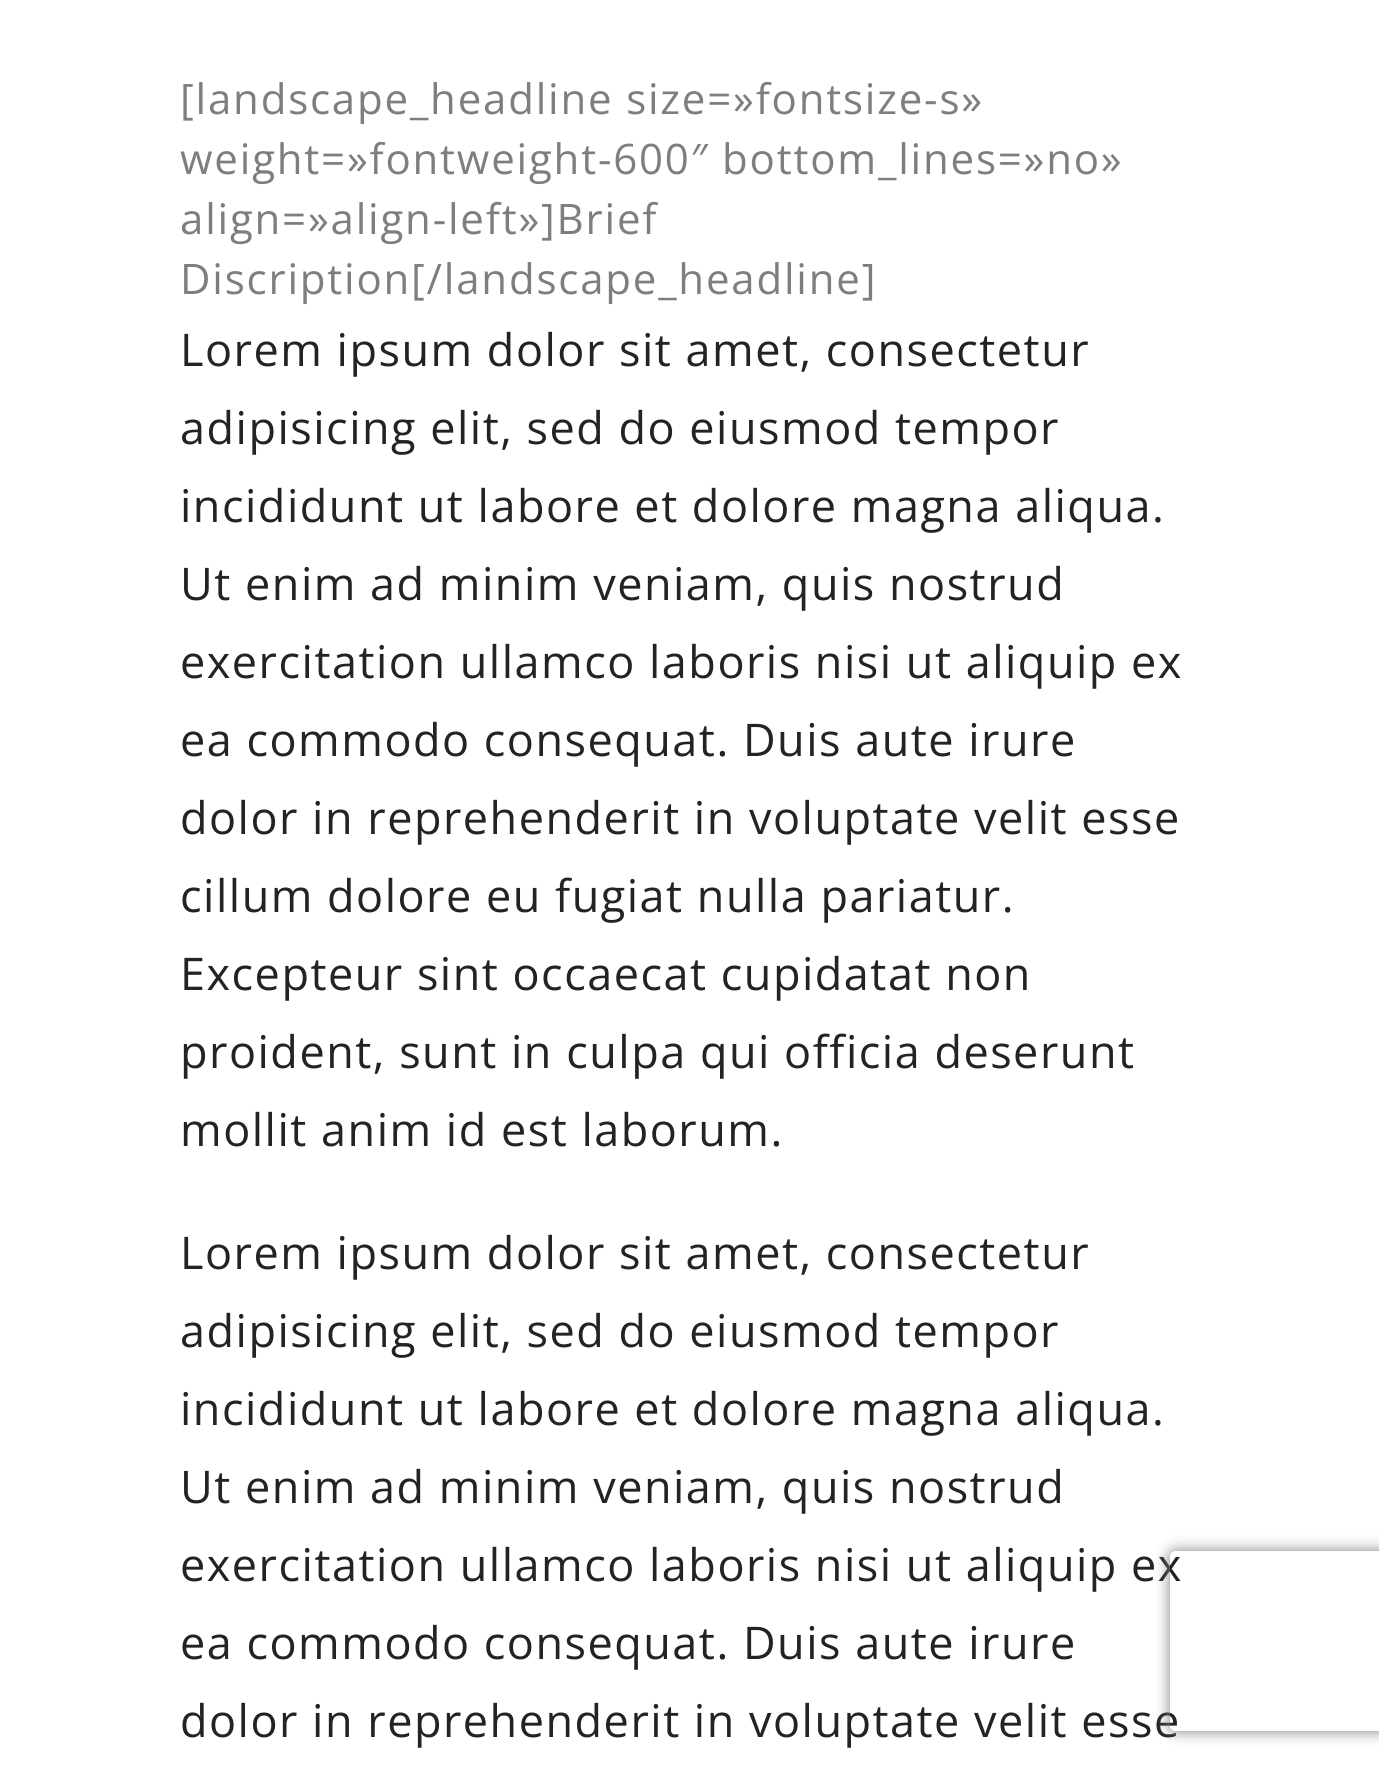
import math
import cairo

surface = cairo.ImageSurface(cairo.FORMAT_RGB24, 1379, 1771)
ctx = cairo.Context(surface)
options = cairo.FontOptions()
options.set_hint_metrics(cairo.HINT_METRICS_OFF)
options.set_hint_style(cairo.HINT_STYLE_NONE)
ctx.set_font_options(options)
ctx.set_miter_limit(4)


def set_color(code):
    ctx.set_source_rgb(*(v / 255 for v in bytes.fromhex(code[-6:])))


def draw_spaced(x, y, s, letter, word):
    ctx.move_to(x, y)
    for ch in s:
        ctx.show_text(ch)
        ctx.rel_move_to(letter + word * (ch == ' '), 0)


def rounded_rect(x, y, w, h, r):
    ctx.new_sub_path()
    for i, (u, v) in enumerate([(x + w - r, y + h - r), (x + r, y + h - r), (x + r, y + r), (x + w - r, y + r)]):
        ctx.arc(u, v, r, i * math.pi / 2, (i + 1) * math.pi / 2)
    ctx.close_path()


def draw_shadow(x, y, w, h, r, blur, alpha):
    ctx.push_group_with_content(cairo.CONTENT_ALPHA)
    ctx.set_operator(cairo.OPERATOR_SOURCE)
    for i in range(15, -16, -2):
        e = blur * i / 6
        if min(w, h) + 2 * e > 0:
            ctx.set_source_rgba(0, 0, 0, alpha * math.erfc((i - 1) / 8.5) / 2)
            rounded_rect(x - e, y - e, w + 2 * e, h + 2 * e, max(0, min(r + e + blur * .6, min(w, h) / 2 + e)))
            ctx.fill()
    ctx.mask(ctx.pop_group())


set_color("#ffffff")
ctx.paint()
ctx.select_font_face("Open Sans")
ctx.set_font_size(42)
set_color("#7e7e7e")
draw_spaced(180, 114, "[landscape_headline size=»fontsize-s»", 1.8, 0)
draw_spaced(180, 174, "weight=»fontweight-600″ bottom_lines=»no»", 1.8, 0)
draw_spaced(180, 234, "align=»align-left»]Brief", 1.8, 0)
draw_spaced(180, 294, "Discription[/landscape_headline]", 1.8, 0)
ctx.set_font_size(45)
set_color("#232323")
draw_spaced(180, 366, "Lorem ipsum dolor sit amet, consectetur", 1.5, 0)
draw_spaced(180, 444, "adipisicing elit, sed do eiusmod tempor", 1.5, 0)
draw_spaced(180, 522, "incididunt ut labore et dolore magna aliqua.", 1.5, 0)
draw_spaced(180, 600, "Ut enim ad minim veniam, quis nostrud", 1.5, 0)
draw_spaced(180, 678, "exercitation ullamco laboris nisi ut aliquip ex", 1.5, 0)
draw_spaced(180, 756, "ea commodo consequat. Duis aute irure", 1.5, 0)
draw_spaced(180, 834, "dolor in reprehenderit in voluptate velit esse", 1.5, 0)
draw_spaced(180, 912, "cillum dolore eu fugiat nulla pariatur.", 1.5, 0)
draw_spaced(180, 990, "Excepteur sint occaecat cupidatat non", 1.5, 0)
draw_spaced(180, 1068, "proident, sunt in culpa qui officia deserunt", 1.5, 0)
draw_spaced(180, 1146, "mollit anim id est laborum.", 1.5, 0)
draw_spaced(180, 1269, "Lorem ipsum dolor sit amet, consectetur", 1.5, 0)
draw_spaced(180, 1347, "adipisicing elit, sed do eiusmod tempor", 1.5, 0)
draw_spaced(180, 1425, "incididunt ut labore et dolore magna aliqua.", 1.5, 0)
draw_spaced(180, 1503, "Ut enim ad minim veniam, quis nostrud", 1.5, 0)
draw_spaced(180, 1581, "exercitation ullamco laboris nisi ut aliquip ex", 1.5, 0)
draw_spaced(180, 1659, "ea commodo consequat. Duis aute irure", 1.5, 0)
draw_spaced(180, 1737, "dolor in reprehenderit in voluptate velit esse", 1.5, 0)
ctx.save()
ctx.set_fill_rule(cairo.FILL_RULE_EVEN_ODD)
ctx.new_path()
ctx.move_to(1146, 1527)
ctx.line_to(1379, 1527)
ctx.line_to(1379, 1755)
ctx.line_to(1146, 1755)
ctx.close_path()
ctx.move_to(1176, 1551)
ctx.line_to(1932, 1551)
ctx.curve_to(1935.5, 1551, 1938, 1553.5, 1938, 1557)
ctx.line_to(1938, 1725)
ctx.curve_to(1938, 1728.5, 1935.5, 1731, 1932, 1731)
ctx.line_to(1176, 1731)
ctx.curve_to(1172.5, 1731, 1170, 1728.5, 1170, 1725)
ctx.line_to(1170, 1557)
ctx.curve_to(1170, 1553.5, 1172.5, 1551, 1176, 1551)
ctx.close_path()
ctx.clip()
set_color("#808080")
draw_shadow(1170, 1551, 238, 180, 6, 7.5, 1)
ctx.restore()
surface.write_to_png("output.png")
